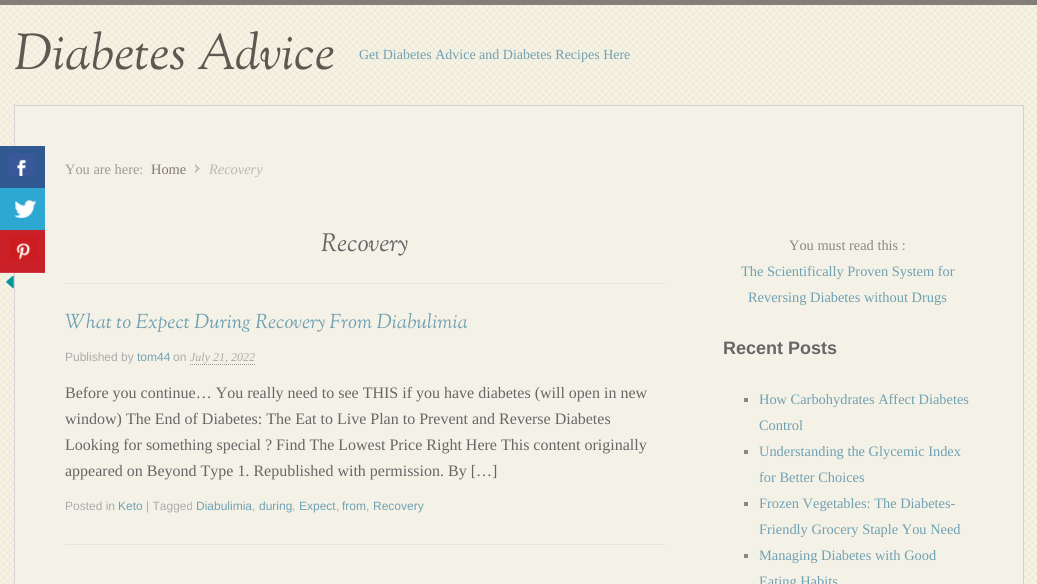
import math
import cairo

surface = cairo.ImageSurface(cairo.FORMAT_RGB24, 1037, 584)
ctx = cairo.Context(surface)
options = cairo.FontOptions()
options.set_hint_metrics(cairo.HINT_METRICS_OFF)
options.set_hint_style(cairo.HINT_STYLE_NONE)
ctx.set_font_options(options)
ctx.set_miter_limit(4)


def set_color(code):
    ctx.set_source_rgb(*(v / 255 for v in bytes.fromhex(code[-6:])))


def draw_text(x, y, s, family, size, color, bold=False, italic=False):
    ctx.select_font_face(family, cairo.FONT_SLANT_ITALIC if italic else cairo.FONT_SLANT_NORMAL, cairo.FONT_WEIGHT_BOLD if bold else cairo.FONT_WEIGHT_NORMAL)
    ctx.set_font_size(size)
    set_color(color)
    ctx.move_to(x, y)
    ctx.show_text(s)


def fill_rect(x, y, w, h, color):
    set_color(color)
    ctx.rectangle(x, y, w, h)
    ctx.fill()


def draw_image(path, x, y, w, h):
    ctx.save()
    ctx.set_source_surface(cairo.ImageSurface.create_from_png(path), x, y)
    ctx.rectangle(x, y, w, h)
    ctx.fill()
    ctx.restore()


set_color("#ffffff")
ctx.paint()
draw_image("assets/img1.png", 0, 5, 1037, 579)
fill_rect(0, 0, 1037, 5, "#847e79")
draw_text(14, 69, "Diabetes Advice", "Sorts Mill Goudy Medium", 50, "#5e5752", italic=True)
draw_text(359, 59, "Get Diabetes Advice and Diabetes Recipes Here", "Liberation Serif", 14, "#70a0b2")
set_color("#f4f2e7")
ctx.rectangle(14.5, 105.5, 1009, 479)
ctx.fill_preserve()
set_color("#d5d3d1")
ctx.set_line_width(1)
ctx.stroke()
draw_text(65, 174, "You are here:", "Liberation Serif", 14.4, "#9f9994")
draw_text(151, 174, "Home", "Liberation Serif", 14.4, "#807871")
draw_image("assets/img2.png", 195, 164, 5, 9)
draw_text(209, 174, "Recovery", "Liberation Serif", 14.4, "#bab7b5", italic=True)
fill_rect(65, 283, 600, 1, "#e2e6e2")
draw_text(321, 251, "Recovery", "Sorts Mill Goudy Medium", 25, "#666666", italic=True)
fill_rect(65, 544, 600, 1, "#e2e6e2")
draw_text(65, 328, "What to Expect During Recovery From Diabulimia", "Sorts Mill Goudy Medium", 20, "#70a0b2", italic=True)
draw_text(65, 361, "Published by", "Liberation Sans", 12, "#aaaaaa")
draw_text(137, 361, "tom44", "Liberation Sans", 12, "#70a0b2")
draw_text(173, 361, "on", "Liberation Sans", 12, "#aaaaaa")
draw_text(190, 361, "July 21, 2022", "Liberation Serif", 12, "#aaaaaa", italic=True)
ctx.new_path()
ctx.move_to(190, 364.5)
ctx.line_to(255, 364.5)
set_color("#999999")
ctx.set_dash([1, 1])
ctx.stroke()
draw_text(65, 398, "Before you continue… You really need to see THIS if you have diabetes (will open in new", "Liberation Serif", 16, "#666666")
draw_text(65, 424, "window) The End of Diabetes: The Eat to Live Plan to Prevent and Reverse Diabetes", "Liberation Serif", 16, "#666666")
draw_text(65, 450, "Looking for something special ? Find The Lowest Price Right Here This content originally", "Liberation Serif", 16, "#666666")
draw_text(65, 476, "appeared on Beyond Type 1. Republished with permission. By […]", "Liberation Serif", 16, "#666666")
draw_text(65, 510, "Posted in", "Liberation Sans", 12, "#aaaaaa")
draw_text(118, 510, "Keto", "Liberation Sans", 12, "#70a0b2")
draw_text(146, 510, "| Tagged", "Liberation Sans", 12, "#aaaaaa")
draw_text(196, 510, "Diabulimia", "Liberation Sans", 12, "#70a0b2")
draw_text(252, 510, ",", "Liberation Sans", 12, "#aaaaaa")
draw_text(259, 510, "during", "Liberation Sans", 12, "#70a0b2")
draw_text(292, 510, ",", "Liberation Sans", 12, "#aaaaaa")
draw_text(299, 510, "Expect", "Liberation Sans", 12, "#70a0b2")
draw_text(336, 510, ",", "Liberation Sans", 12, "#aaaaaa")
draw_text(342, 510, "from", "Liberation Sans", 12, "#70a0b2")
draw_text(366, 510, ",", "Liberation Sans", 12, "#aaaaaa")
draw_text(373, 510, "Recovery", "Liberation Sans", 12, "#70a0b2")
draw_text(789, 250, "You must read this :", "Liberation Serif", 14.4, "#888888")
draw_text(741, 276, "The Scientifically Proven System for", "Liberation Serif", 14.4, "#70a0b2")
draw_text(748, 302, "Reversing Diabetes without Drugs", "Liberation Serif", 14.4, "#70a0b2")
draw_text(723, 354, "Recent Posts", "Liberation Sans", 18, "#666666", bold=True)
fill_rect(744, 398, 4, 4, "#888888")
draw_text(759, 404, "How Carbohydrates Affect Diabetes", "Liberation Serif", 14.4, "#70a0b2")
draw_text(759, 430, "Control", "Liberation Serif", 14.4, "#70a0b2")
fill_rect(744, 450, 4, 4, "#888888")
draw_text(759, 456, "Understanding the Glycemic Index", "Liberation Serif", 14.4, "#70a0b2")
draw_text(759, 482, "for Better Choices", "Liberation Serif", 14.4, "#70a0b2")
fill_rect(744, 502, 4, 4, "#888888")
draw_text(759, 508, "Frozen Vegetables: The Diabetes-", "Liberation Serif", 14.4, "#70a0b2")
draw_text(759, 534, "Friendly Grocery Staple You Need", "Liberation Serif", 14.4, "#70a0b2")
fill_rect(744, 554, 4, 4, "#888888")
draw_text(759, 560, "Managing Diabetes with Good", "Liberation Serif", 14.4, "#70a0b2")
draw_text(759, 586, "Eating Habits", "Liberation Serif", 14.4, "#70a0b2")
fill_rect(0, 146, 45, 42, "#305891")
draw_image("assets/img3.png", 8, 153, 28, 23)
fill_rect(0, 188, 45, 42, "#2ca8d2")
draw_image("assets/img4.png", 14, 200, 23, 18)
fill_rect(0, 230, 45, 42, "#ca2027")
fill_rect(0, 272, 45, 1, "#cf363d")
draw_image("assets/img5.png", 9, 236, 29, 24)
draw_image("assets/img6.png", 6, 275, 8, 14)
surface.write_to_png("output.png")
